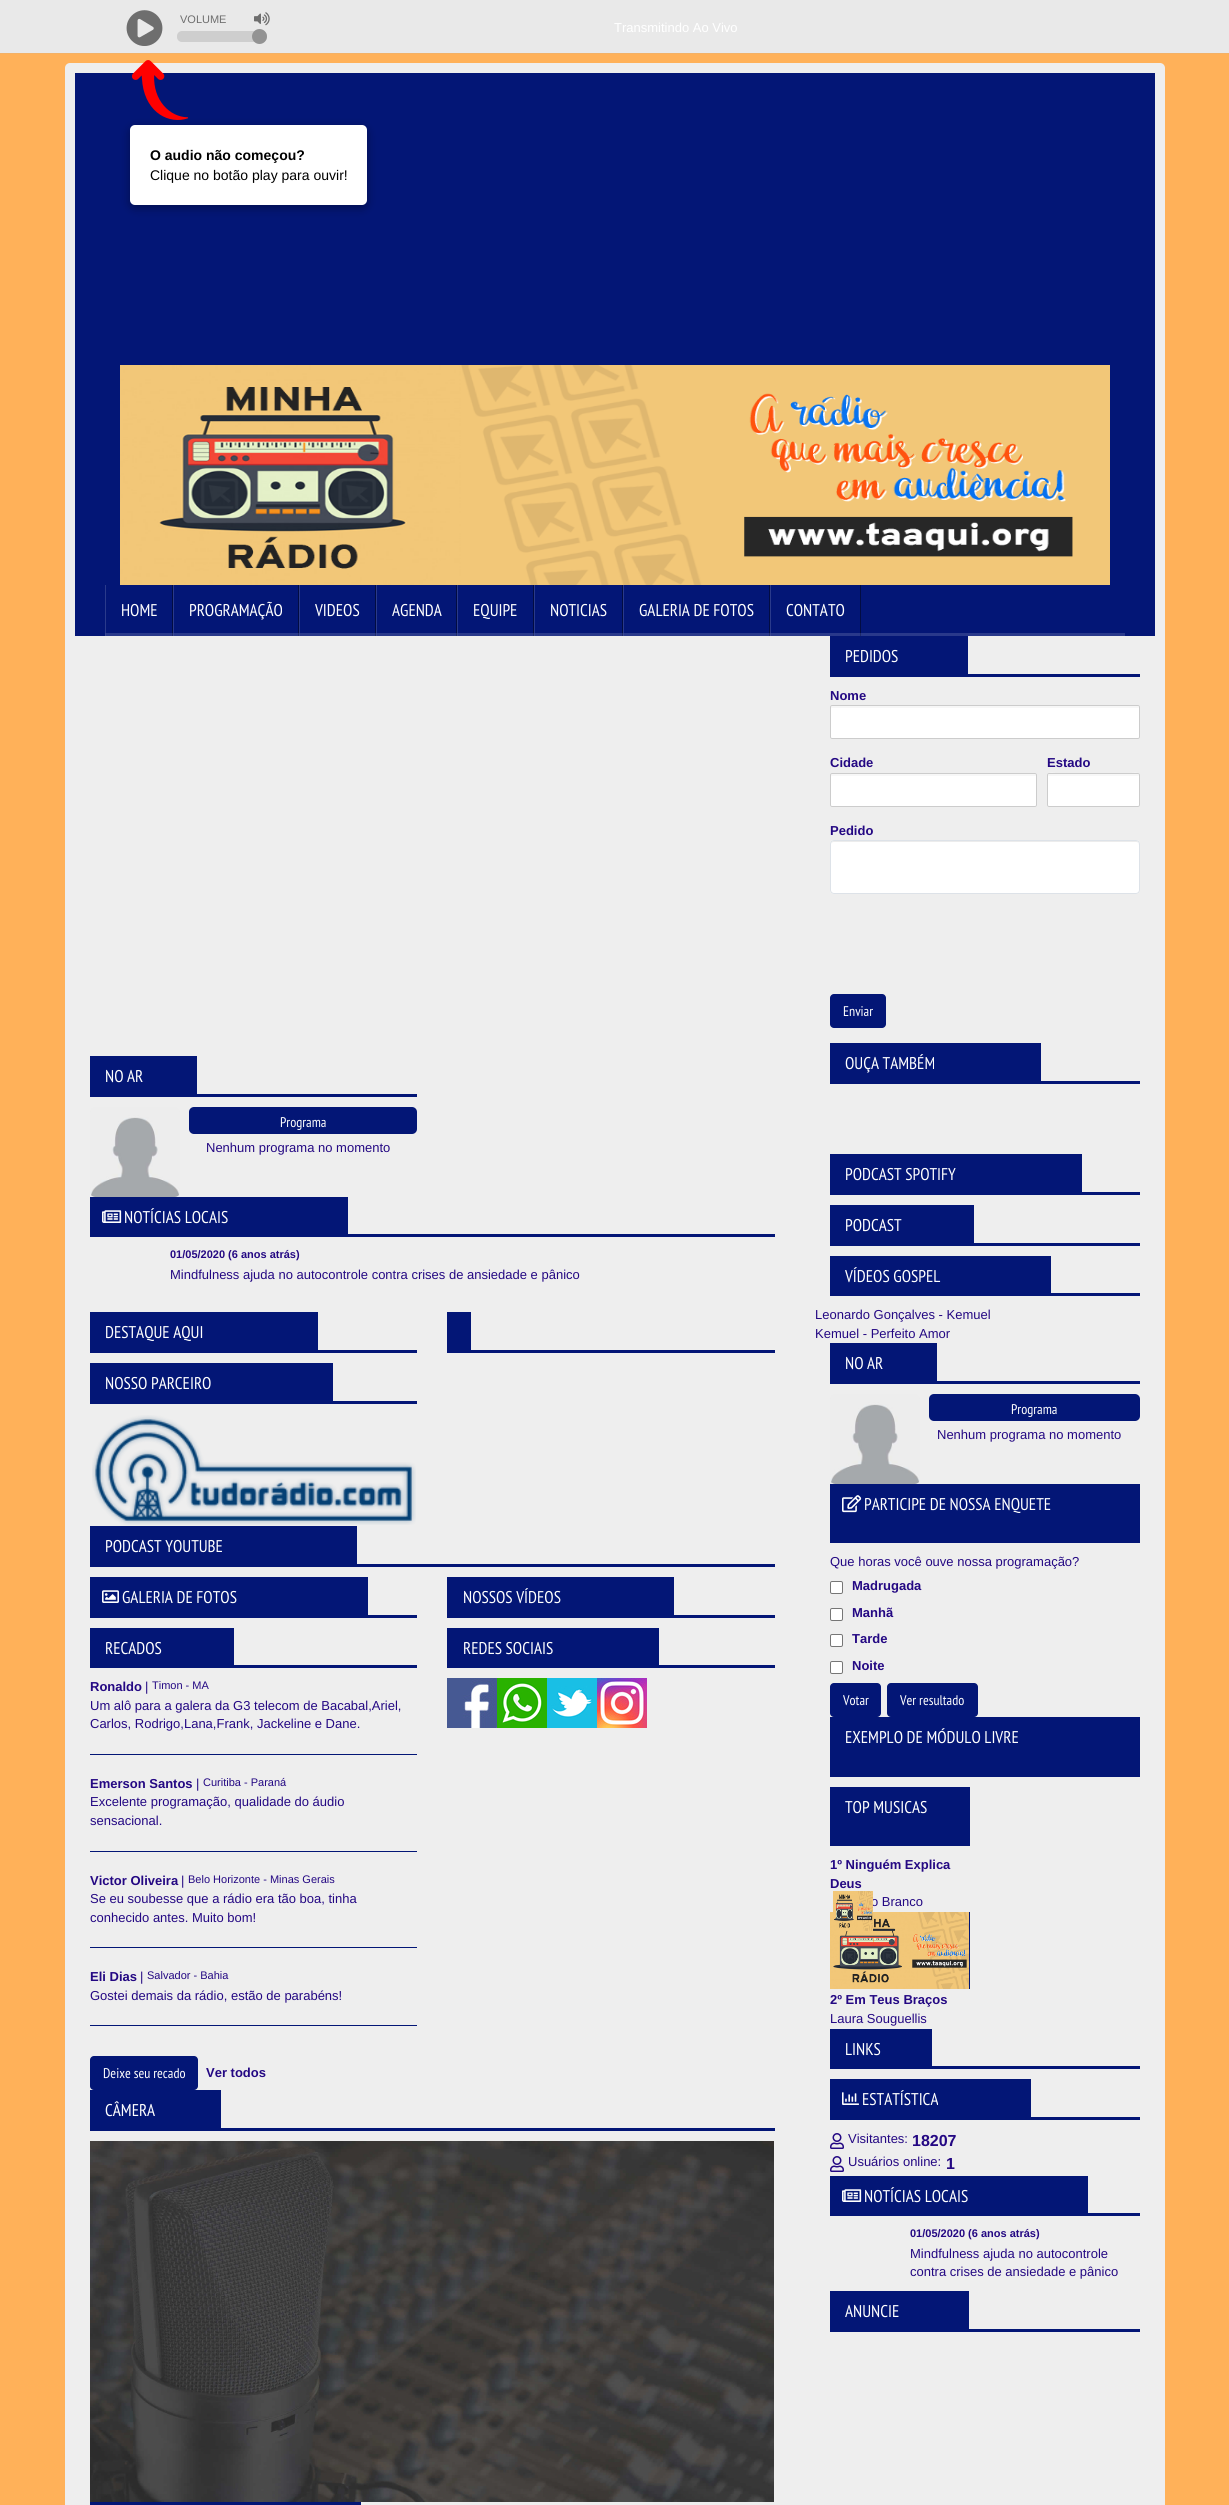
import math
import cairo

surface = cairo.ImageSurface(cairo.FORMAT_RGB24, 1229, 2505)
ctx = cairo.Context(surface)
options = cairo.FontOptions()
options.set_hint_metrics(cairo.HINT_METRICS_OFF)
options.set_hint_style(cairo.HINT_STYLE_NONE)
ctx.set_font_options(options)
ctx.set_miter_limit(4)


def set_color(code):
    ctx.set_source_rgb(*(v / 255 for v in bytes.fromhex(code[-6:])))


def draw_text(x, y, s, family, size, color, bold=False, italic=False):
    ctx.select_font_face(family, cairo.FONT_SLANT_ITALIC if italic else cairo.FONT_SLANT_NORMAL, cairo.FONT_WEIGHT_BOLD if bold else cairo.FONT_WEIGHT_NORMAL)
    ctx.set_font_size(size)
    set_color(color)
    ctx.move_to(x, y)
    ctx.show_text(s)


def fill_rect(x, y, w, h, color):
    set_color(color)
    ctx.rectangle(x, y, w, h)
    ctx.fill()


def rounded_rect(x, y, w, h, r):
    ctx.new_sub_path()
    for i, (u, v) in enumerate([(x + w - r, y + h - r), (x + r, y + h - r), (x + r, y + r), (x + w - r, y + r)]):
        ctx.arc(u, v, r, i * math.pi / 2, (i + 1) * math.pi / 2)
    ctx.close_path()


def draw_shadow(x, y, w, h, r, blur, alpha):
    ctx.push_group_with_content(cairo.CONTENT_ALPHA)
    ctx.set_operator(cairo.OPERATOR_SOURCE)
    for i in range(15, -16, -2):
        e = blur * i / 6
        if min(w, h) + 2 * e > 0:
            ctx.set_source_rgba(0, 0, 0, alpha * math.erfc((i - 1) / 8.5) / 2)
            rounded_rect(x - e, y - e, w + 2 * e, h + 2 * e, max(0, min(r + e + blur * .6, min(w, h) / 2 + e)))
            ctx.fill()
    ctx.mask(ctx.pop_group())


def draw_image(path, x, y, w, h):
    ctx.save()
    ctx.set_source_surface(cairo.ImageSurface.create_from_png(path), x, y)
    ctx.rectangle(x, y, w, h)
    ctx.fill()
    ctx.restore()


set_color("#ffb159")
ctx.paint()
fill_rect(0, 53, 1229, 1, "#f3b166")
fill_rect(0, 0, 1229, 53, "#e9e9e9")
draw_image("assets/img1.png", 126, 10, 37, 36)
draw_text(180, 23, "VOLUME", "Liberation Sans", 11, "#6e6e6e")
draw_image("assets/img2.png", 254, 12, 16, 14)
set_color("#cecece")
rounded_rect(177, 31, 90, 11, 5)
ctx.fill()
set_color("#939393")
ctx.arc(259.5, 36.5, 7.5, 0, 2 * math.pi)
ctx.fill()
draw_text(614, 32, "Transmitindo Ao Vivo", "Liberation Sans", 13, "#ffffff")
set_color("#eeeeee")
rounded_rect(65, 63, 1100, 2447, 5)
ctx.fill()
fill_rect(75, 73, 1080, 563, "#031676")
set_color("#000000")
draw_shadow(130, 128, 237, 80, 5, 5, 0.34)
draw_image("assets/img3.png", 131, 60, 58, 60)
set_color("#ffffff")
rounded_rect(130, 125, 237, 80, 5)
ctx.fill()
draw_text(150, 160, "O audio não começou?", "Liberation Sans", 14, "#000000", bold=True)
draw_text(150, 180, "Clique no botão play para ouvir!", "Liberation Sans", 14, "#000000")
draw_image("assets/img4.png", 120, 365, 990, 220)
fill_rect(105, 633, 1020, 3, "#29398b")
fill_rect(770, 633, 1, 3, "#3a4994")
fill_rect(860, 633, 1, 3, "#1f2b68")
fill_rect(623, 633, 1, 3, "#3a4994")
fill_rect(769, 633, 1, 3, "#1f2b68")
fill_rect(534, 633, 1, 3, "#3a4994")
fill_rect(622, 633, 1, 3, "#1f2b68")
fill_rect(457, 633, 1, 3, "#3a4994")
fill_rect(533, 633, 1, 3, "#1f2b68")
fill_rect(376, 633, 1, 3, "#3a4994")
fill_rect(456, 633, 1, 3, "#1f2b68")
fill_rect(299, 633, 1, 3, "#3a4994")
fill_rect(375, 633, 1, 3, "#1f2b68")
fill_rect(173, 633, 1, 3, "#3a4994")
fill_rect(298, 633, 1, 3, "#1f2b68")
fill_rect(105, 633, 1, 3, "#3a4994")
fill_rect(172, 633, 1, 3, "#1f2b68")
fill_rect(172, 585, 1, 48, "#020c42")
fill_rect(105, 585, 1, 48, "#2a3a8b")
draw_text(121, 616, "HOME", "PT Sans Narrow", 17, "#ffffff")
fill_rect(298, 585, 1, 48, "#020c42")
fill_rect(173, 585, 1, 48, "#2a3a8b")
draw_text(189, 616, "PROGRAMAÇÃO", "PT Sans Narrow", 17, "#ffffff")
fill_rect(375, 585, 1, 48, "#020c42")
fill_rect(299, 585, 1, 48, "#2a3a8b")
draw_text(315, 616, "VIDEOS", "PT Sans Narrow", 17, "#ffffff")
fill_rect(456, 585, 1, 48, "#020c42")
fill_rect(376, 585, 1, 48, "#2a3a8b")
draw_text(392, 616, "AGENDA", "PT Sans Narrow", 17, "#ffffff")
fill_rect(533, 585, 1, 48, "#020c42")
fill_rect(457, 585, 1, 48, "#2a3a8b")
draw_text(473, 616, "EQUIPE", "PT Sans Narrow", 17, "#ffffff")
fill_rect(622, 585, 1, 48, "#020c42")
fill_rect(534, 585, 1, 48, "#2a3a8b")
draw_text(550, 616, "NOTICIAS", "PT Sans Narrow", 17, "#ffffff")
fill_rect(769, 585, 1, 48, "#020c42")
fill_rect(623, 585, 1, 48, "#2a3a8b")
draw_text(639, 616, "GALERIA DE FOTOS", "PT Sans Narrow", 17, "#ffffff")
fill_rect(860, 585, 1, 48, "#020c42")
fill_rect(770, 585, 1, 48, "#2a3a8b")
draw_text(786, 616, "CONTATO", "PT Sans Narrow", 17, "#ffffff")
fill_rect(90, 1056, 107, 38, "#031676")
draw_text(105, 1082, "NO AR", "PT Sans Narrow", 17, "#ffffff")
fill_rect(90, 1094, 327, 3, "#031676")
draw_image("assets/img5.png", 90, 1107, 90, 90)
rounded_rect(189, 1107, 228, 27, 5)
ctx.fill()
draw_text(280, 1127, "Programa", "PT Sans Narrow", 14, "#ffffff")
draw_text(206, 1152, "Nenhum programa no momento", "Liberation Sans", 13, "#240883")
fill_rect(90, 1197, 258, 37, "#031676")
draw_image("assets/img6.png", 102, 1210, 20, 13)
draw_text(124, 1223, "NOTÍCIAS LOCAIS", "PT Sans Narrow", 17, "#ffffff")
fill_rect(90, 1234, 685, 3, "#031676")
draw_text(170, 1258, "01/05/2020 (6 anos atrás)", "Liberation Sans", 11, "#240883", bold=True)
draw_text(170, 1279, "Mindfulness ajuda no autocontrole contra crises de ansiedade e pânico", "Liberation Sans", 13, "#240883")
fill_rect(90, 1312, 228, 38, "#031676")
draw_text(105, 1338, "DESTAQUE AQUI", "PT Sans Narrow", 17, "#ffffff")
fill_rect(90, 1350, 327, 3, "#031676")
fill_rect(447, 1312, 24, 38, "#031676")
fill_rect(447, 1350, 328, 3, "#031676")
fill_rect(90, 1363, 243, 38, "#031676")
draw_text(105, 1389, "NOSSO PARCEIRO", "PT Sans Narrow", 17, "#ffffff")
fill_rect(90, 1401, 327, 3, "#031676")
draw_image("assets/img7.png", 92, 1415, 324, 110)
fill_rect(90, 1526, 267, 38, "#031676")
draw_text(105, 1552, "PODCAST YOUTUBE", "PT Sans Narrow", 17, "#ffffff")
fill_rect(90, 1564, 685, 3, "#031676")
fill_rect(90, 1577, 278, 38, "#031676")
draw_image("assets/img8.png", 102, 1590, 17, 13)
draw_text(122, 1603, "GALERIA DE FOTOS", "PT Sans Narrow", 17, "#ffffff")
fill_rect(90, 1615, 327, 3, "#031676")
fill_rect(447, 1577, 227, 38, "#031676")
draw_text(463, 1603, "NOSSOS VÍDEOS", "PT Sans Narrow", 17, "#ffffff")
fill_rect(447, 1615, 328, 3, "#031676")
fill_rect(90, 1628, 144, 37, "#031676")
draw_text(105, 1654, "RECADOS", "PT Sans Narrow", 17, "#ffffff")
fill_rect(90, 1665, 327, 3, "#031676")
draw_text(90, 1691, "Ronaldo", "Liberation Sans", 13, "#240883", bold=True)
draw_text(145, 1691, "|", "Liberation Sans", 13, "#240883")
draw_text(152, 1689, "Timon - MA", "Liberation Sans", 11, "#240883")
draw_text(90, 1710, "Um alô para a galera da G3 telecom de Bacabal,Ariel,", "Liberation Sans", 13, "#240883")
draw_text(90, 1728, "Carlos, Rodrigo,Lana,Frank, Jackeline e Dane.", "Liberation Sans", 13, "#240883")
fill_rect(90, 1754, 327, 1, "#031676")
draw_text(90, 1788, "Emerson Santos", "Liberation Sans", 13, "#240883", bold=True)
draw_text(196, 1788, "|", "Liberation Sans", 13, "#240883")
draw_text(203, 1786, "Curitiba - Paraná", "Liberation Sans", 11, "#240883")
draw_text(90, 1806, "Excelente programação, qualidade do áudio", "Liberation Sans", 13, "#240883")
draw_text(90, 1825, "sensacional.", "Liberation Sans", 13, "#240883")
fill_rect(90, 1851, 327, 1, "#031676")
draw_text(90, 1885, "Victor Oliveira", "Liberation Sans", 13, "#240883", bold=True)
draw_text(181, 1885, "|", "Liberation Sans", 13, "#240883")
draw_text(188, 1883, "Belo Horizonte - Minas Gerais", "Liberation Sans", 11, "#240883")
draw_text(90, 1903, "Se eu soubesse que a rádio era tão boa, tinha", "Liberation Sans", 13, "#240883")
draw_text(90, 1922, "conhecido antes. Muito bom!", "Liberation Sans", 13, "#240883")
fill_rect(90, 1947, 327, 1, "#031676")
draw_text(90, 1981, "Eli Dias", "Liberation Sans", 13, "#240883", bold=True)
draw_text(140, 1981, "|", "Liberation Sans", 13, "#240883")
draw_text(147, 1979, "Salvador - Bahia", "Liberation Sans", 11, "#240883")
draw_text(90, 2000, "Gostei demais da rádio, estão de parabéns!", "Liberation Sans", 13, "#240883")
fill_rect(90, 2025, 327, 1, "#031676")
rounded_rect(90, 2056, 108, 34, 4)
ctx.fill()
draw_text(103, 2078, "Deixe seu recado", "PT Sans Narrow", 14, "#ffffff")
draw_text(206, 2077, "Ver todos", "Liberation Sans", 13, "#240883", bold=True)
fill_rect(447, 1628, 212, 37, "#031676")
draw_text(463, 1654, "REDES SOCIAIS", "PT Sans Narrow", 17, "#ffffff")
fill_rect(447, 1665, 328, 3, "#031676")
draw_image("assets/img9.png", 447, 1678, 50, 50)
draw_image("assets/img10.png", 497, 1678, 50, 50)
draw_image("assets/img11.png", 547, 1678, 50, 50)
draw_image("assets/img12.png", 597, 1678, 50, 50)
fill_rect(90, 2090, 131, 38, "#031676")
draw_text(105, 2116, "CÂMERA", "PT Sans Narrow", 17, "#ffffff")
fill_rect(90, 2128, 685, 3, "#031676")
draw_image("assets/img13.png", 90, 2141, 684, 361)
fill_rect(90, 2502, 271, 3, "#031676")
fill_rect(830, 636, 138, 38, "#031676")
draw_text(845, 662, "PEDIDOS", "PT Sans Narrow", 17, "#ffffff")
fill_rect(830, 674, 310, 3, "#031676")
draw_text(830, 700, "Nome", "Liberation Sans", 13, "#240883", bold=True)
set_color("#ffffff")
rounded_rect(830, 705, 310, 34, 2)
ctx.fill()
set_color("#f7f7f7")
ctx.new_path()
ctx.move_to(832, 708)
ctx.line_to(1138, 708)
ctx.curve_to(1139, 708, 1139, 708, 1139, 709)
ctx.curve_to(1139, 708, 1139, 706, 1138, 706)
ctx.line_to(831, 706)
ctx.line_to(831, 709)
ctx.curve_to(831, 708, 831, 708, 832, 708)
ctx.close_path()
ctx.fill()
rounded_rect(830.5, 705.5, 309, 33, 1.5)
set_color("#cccccc")
ctx.set_line_width(1)
ctx.stroke()
draw_text(830, 767, "Cidade", "Liberation Sans", 13, "#240883", bold=True)
set_color("#ffffff")
rounded_rect(830, 773, 207, 34, 2)
ctx.fill()
set_color("#f7f7f7")
ctx.new_path()
ctx.move_to(832, 776)
ctx.line_to(1036, 776)
ctx.line_to(1036, 777)
ctx.line_to(1036, 775)
ctx.curve_to(1036, 774, 1036, 774, 1035, 774)
ctx.line_to(832, 774)
ctx.curve_to(831, 774, 831, 774, 831, 775)
ctx.line_to(831, 777)
ctx.curve_to(831, 776, 831, 776, 832, 776)
ctx.close_path()
ctx.fill()
rounded_rect(830.5, 773.5, 206, 33, 1.5)
set_color("#cccccc")
ctx.stroke()
draw_text(1047, 767, "Estado", "Liberation Sans", 13, "#240883", bold=True)
set_color("#ffffff")
rounded_rect(1047, 773, 93, 34, 2)
ctx.fill()
set_color("#f7f7f7")
ctx.new_path()
ctx.move_to(1049, 776)
ctx.line_to(1138, 776)
ctx.curve_to(1139, 776, 1139, 776, 1139, 777)
ctx.curve_to(1139, 769, 1133, 774, 1123, 774)
ctx.line_to(1064, 774)
ctx.curve_to(1054, 774, 1048, 769, 1048, 777)
ctx.curve_to(1048, 776, 1048, 776, 1049, 776)
ctx.close_path()
ctx.fill()
rounded_rect(1047.5, 773.5, 92, 33, 1.5)
set_color("#cccccc")
ctx.stroke()
draw_text(830, 835, "Pedido", "Liberation Sans", 13, "#240883", bold=True)
set_color("#ffffff")
rounded_rect(830, 840, 310, 54, 4)
ctx.fill()
set_color("#ececec")
ctx.new_path()
ctx.move_to(834, 842)
ctx.line_to(1136, 842)
ctx.curve_to(1138, 842, 1139, 843, 1139, 845)
ctx.line_to(1138, 842)
ctx.line_to(1137, 841)
ctx.line_to(834, 841)
ctx.curve_to(832, 841, 831, 843, 831, 845)
ctx.curve_to(831, 843, 832, 842, 834, 842)
ctx.close_path()
ctx.fill()
rounded_rect(830.5, 840.5, 309, 53, 3.5)
set_color("#dde2e8")
ctx.stroke()
set_color("#031676")
rounded_rect(830, 994, 56, 34, 4)
ctx.fill()
draw_text(843, 1016, "Enviar", "PT Sans Narrow", 14, "#ffffff")
fill_rect(830, 1043, 211, 38, "#031676")
draw_text(845, 1069, "OUÇA TAMBÉM", "PT Sans Narrow", 17, "#ffffff")
fill_rect(830, 1081, 310, 3, "#031676")
fill_rect(830, 1154, 252, 38, "#031676")
draw_text(845, 1180, "PODCAST SPOTIFY", "PT Sans Narrow", 17, "#ffffff")
fill_rect(830, 1192, 310, 3, "#031676")
fill_rect(830, 1205, 144, 38, "#031676")
draw_text(845, 1231, "PODCAST", "PT Sans Narrow", 17, "#ffffff")
fill_rect(830, 1243, 310, 3, "#031676")
fill_rect(830, 1256, 221, 37, "#031676")
draw_text(845, 1282, "VÍDEOS GOSPEL", "PT Sans Narrow", 17, "#ffffff")
fill_rect(830, 1293, 310, 3, "#031676")
draw_text(815, 1319, "Leonardo Gonçalves - Kemuel", "Liberation Sans", 13, "#240883")
draw_text(815, 1338, "Kemuel - Perfeito Amor", "Liberation Sans", 13, "#240883")
fill_rect(830, 1343, 107, 38, "#031676")
draw_text(845, 1369, "NO AR", "PT Sans Narrow", 17, "#ffffff")
fill_rect(830, 1381, 310, 3, "#031676")
draw_image("assets/img14.png", 830, 1394, 90, 90)
rounded_rect(929, 1394, 211, 27, 5)
ctx.fill()
draw_text(1011, 1414, "Programa", "PT Sans Narrow", 14, "#ffffff")
draw_text(937, 1439, "Nenhum programa no momento", "Liberation Sans", 13, "#240883")
fill_rect(830, 1484, 310, 59, "#031676")
draw_image("assets/img15.png", 842, 1495, 20, 18)
draw_text(864, 1510, "PARTICIPE DE NOSSA ENQUETE", "PT Sans Narrow", 17, "#ffffff")
draw_text(830, 1566, "Que horas você ouve nossa programação?", "Liberation Sans", 13, "#240883")
set_color("#ffffff")
rounded_rect(830.5, 1581.5, 12, 12, 1.5)
ctx.fill_preserve()
set_color("#767676")
ctx.stroke()
draw_text(852, 1590, "Madrugada", "Liberation Sans", 13, "#240883", bold=True)
set_color("#ffffff")
rounded_rect(830.5, 1608.5, 12, 12, 1.5)
ctx.fill_preserve()
set_color("#767676")
ctx.stroke()
draw_text(852, 1617, "Manhã", "Liberation Sans", 13, "#240883", bold=True)
set_color("#ffffff")
rounded_rect(830.5, 1634.5, 12, 12, 1.5)
ctx.fill_preserve()
set_color("#767676")
ctx.stroke()
draw_text(852, 1643, "Tarde", "Liberation Sans", 13, "#240883", bold=True)
set_color("#ffffff")
rounded_rect(830.5, 1661.5, 12, 12, 1.5)
ctx.fill_preserve()
set_color("#767676")
ctx.stroke()
draw_text(852, 1670, "Noite", "Liberation Sans", 13, "#240883", bold=True)
set_color("#031676")
rounded_rect(830, 1683, 51, 34, 4)
ctx.fill()
draw_text(843, 1705, "Votar", "PT Sans Narrow", 14, "#ffffff")
set_color("#031676")
rounded_rect(887, 1683, 91, 34, 4)
ctx.fill()
draw_text(900, 1705, "Ver resultado", "PT Sans Narrow", 14, "#ffffff")
fill_rect(830, 1717, 310, 60, "#031676")
draw_text(845, 1743, "EXEMPLO DE MÓDULO LIVRE", "PT Sans Narrow", 17, "#ffffff")
fill_rect(830, 1787, 140, 59, "#031676")
draw_text(845, 1813, "TOP MUSICAS", "PT Sans Narrow", 17, "#ffffff")
draw_text(830, 1869, "1º Ninguém Explica", "Liberation Sans", 13, "#240883", bold=True)
draw_text(830, 1888, "Deus", "Liberation Sans", 13, "#240883", bold=True)
draw_text(871, 1906, "o Branco", "Liberation Sans", 13, "#240883")
draw_image("assets/img17.png", 830, 1912, 139, 77)
draw_image("assets/img16.png", 833, 1891, 40, 40)
fill_rect(969, 1912, 1, 77, "#031676")
draw_text(830, 2004, "2º Em Teus Braços", "Liberation Sans", 13, "#240883", bold=True)
draw_text(830, 2023, "Laura Souguellis", "Liberation Sans", 13, "#240883")
fill_rect(830, 2029, 102, 37, "#031676")
draw_text(845, 2055, "LINKS", "PT Sans Narrow", 17, "#ffffff")
fill_rect(830, 2066, 310, 3, "#031676")
fill_rect(830, 2079, 201, 38, "#031676")
draw_image("assets/img18.png", 842, 2092, 17, 13)
draw_text(862, 2105, "ESTATÍSTICA", "PT Sans Narrow", 17, "#ffffff")
fill_rect(830, 2117, 310, 3, "#031676")
draw_image("assets/img19.png", 830, 2133, 14, 16)
draw_text(848, 2143, "Visitantes:", "Liberation Sans", 13, "#240883")
draw_text(912, 2146, "18207", "Liberation Sans", 16, "#240883", bold=True)
draw_image("assets/img19.png", 830, 2156, 14, 16)
draw_text(848, 2166, "Usuários online:", "Liberation Sans", 13, "#240883")
draw_text(946, 2169, "1", "Liberation Sans", 16, "#240883", bold=True)
fill_rect(830, 2176, 258, 37, "#031676")
draw_image("assets/img6.png", 842, 2189, 20, 13)
draw_text(864, 2202, "NOTÍCIAS LOCAIS", "PT Sans Narrow", 17, "#ffffff")
fill_rect(830, 2213, 310, 3, "#031676")
draw_text(910, 2237, "01/05/2020 (6 anos atrás)", "Liberation Sans", 11, "#240883", bold=True)
draw_text(910, 2258, "Mindfulness ajuda no autocontrole", "Liberation Sans", 13, "#240883")
draw_text(910, 2276, "contra crises de ansiedade e pânico", "Liberation Sans", 13, "#240883")
fill_rect(830, 2291, 139, 38, "#031676")
draw_text(845, 2317, "ANUNCIE", "PT Sans Narrow", 17, "#ffffff")
fill_rect(830, 2329, 310, 3, "#031676")
surface.write_to_png("output.png")
